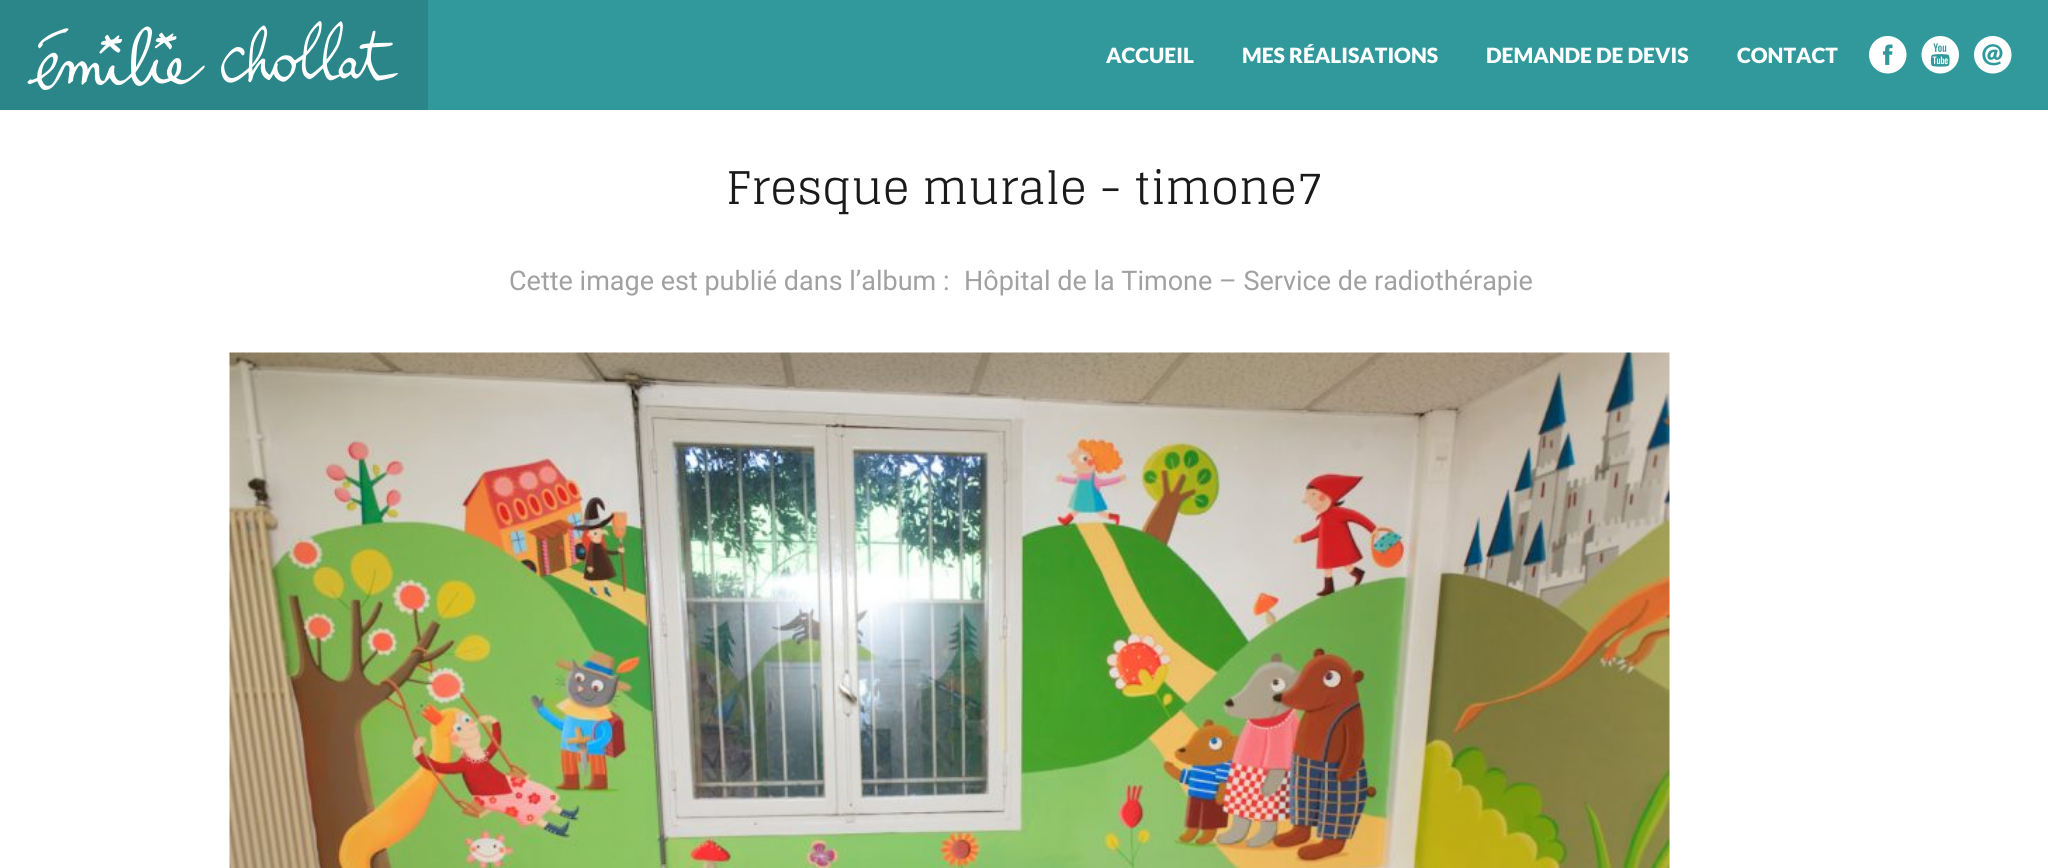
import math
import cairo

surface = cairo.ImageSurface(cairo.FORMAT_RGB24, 2048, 868)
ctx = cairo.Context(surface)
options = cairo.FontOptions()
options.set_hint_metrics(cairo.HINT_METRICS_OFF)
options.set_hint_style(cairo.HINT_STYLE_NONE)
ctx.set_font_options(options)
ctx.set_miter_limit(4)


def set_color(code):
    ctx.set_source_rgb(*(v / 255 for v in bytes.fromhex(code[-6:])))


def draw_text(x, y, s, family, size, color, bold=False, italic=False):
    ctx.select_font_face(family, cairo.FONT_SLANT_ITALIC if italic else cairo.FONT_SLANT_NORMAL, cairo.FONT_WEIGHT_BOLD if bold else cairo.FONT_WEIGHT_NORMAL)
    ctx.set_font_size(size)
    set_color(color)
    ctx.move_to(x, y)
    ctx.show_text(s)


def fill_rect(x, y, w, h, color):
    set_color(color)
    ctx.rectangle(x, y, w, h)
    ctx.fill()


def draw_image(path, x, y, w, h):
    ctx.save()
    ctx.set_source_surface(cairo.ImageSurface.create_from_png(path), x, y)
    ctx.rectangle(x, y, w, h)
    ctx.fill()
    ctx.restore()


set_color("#ffffff")
ctx.paint()
fill_rect(428, 0, 1620, 110, "#31999c")
fill_rect(0, 0, 428, 110, "#2b8689")
draw_image("assets/img1.png", 27, 21, 372, 69)
draw_text(1106, 63, "ACCUEIL", "Lato Black", 21, "#ffffff")
draw_text(1242, 63, "MES RÉALISATIONS", "Lato Black", 21, "#ffffff")
draw_text(1486, 63, "DEMANDE DE DEVIS", "Lato Black", 21, "#ffffff")
draw_text(1737, 63, "CONTACT", "Lato Black", 21, "#ffffff")
draw_image("assets/img2.png", 1869, 36, 38, 38)
draw_image("assets/img3.png", 1921, 36, 38, 38)
draw_image("assets/img4.png", 1974, 36, 38, 38)
draw_text(726, 204, "Fresque murale - timone7", "Glegoo", 45, "#1a1a1a")
draw_text(509, 290, "Cette image est publié dans l’album :", "Roboto", 27, "#a1a1a1")
draw_text(964, 290, "Hôpital de la Timone – Service de radiothérapie", "Roboto", 27, "#a1a1a1")
draw_image("assets/img5.png", 229, 352, 1441, 516)
surface.write_to_png("output.png")
